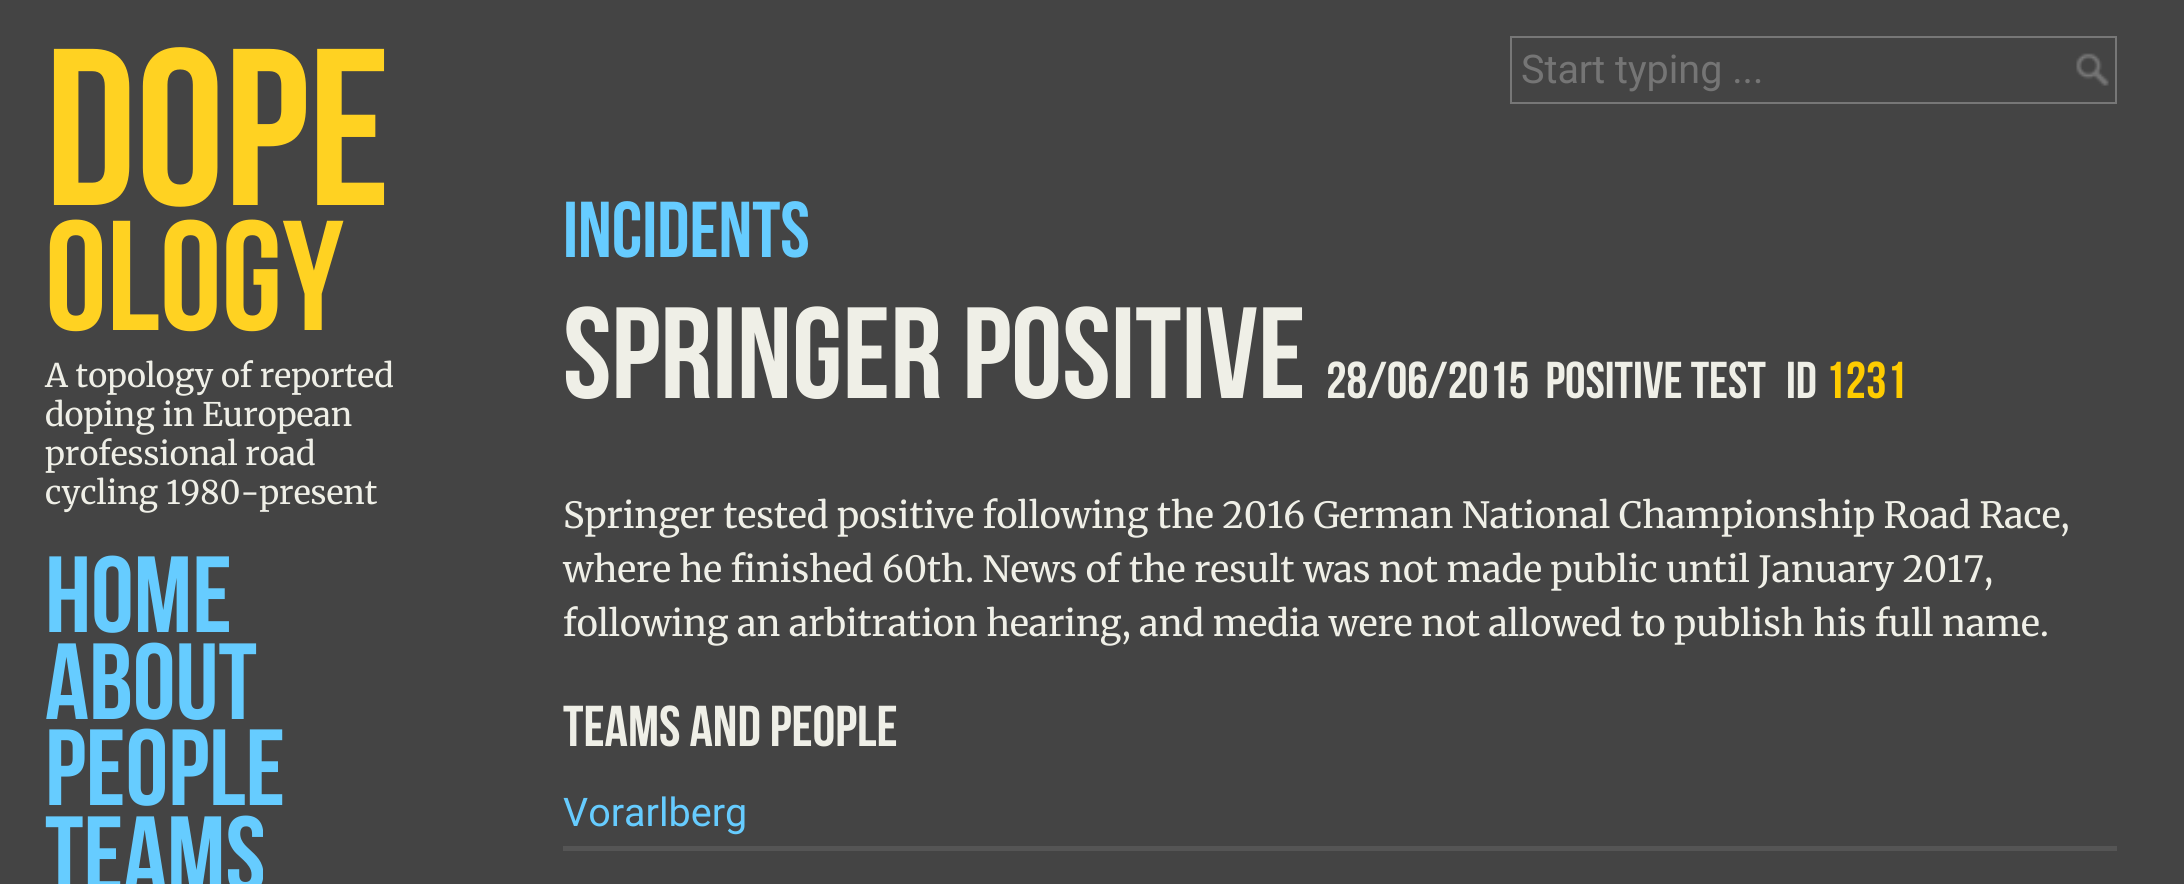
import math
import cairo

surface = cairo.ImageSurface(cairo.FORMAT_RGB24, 2184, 884)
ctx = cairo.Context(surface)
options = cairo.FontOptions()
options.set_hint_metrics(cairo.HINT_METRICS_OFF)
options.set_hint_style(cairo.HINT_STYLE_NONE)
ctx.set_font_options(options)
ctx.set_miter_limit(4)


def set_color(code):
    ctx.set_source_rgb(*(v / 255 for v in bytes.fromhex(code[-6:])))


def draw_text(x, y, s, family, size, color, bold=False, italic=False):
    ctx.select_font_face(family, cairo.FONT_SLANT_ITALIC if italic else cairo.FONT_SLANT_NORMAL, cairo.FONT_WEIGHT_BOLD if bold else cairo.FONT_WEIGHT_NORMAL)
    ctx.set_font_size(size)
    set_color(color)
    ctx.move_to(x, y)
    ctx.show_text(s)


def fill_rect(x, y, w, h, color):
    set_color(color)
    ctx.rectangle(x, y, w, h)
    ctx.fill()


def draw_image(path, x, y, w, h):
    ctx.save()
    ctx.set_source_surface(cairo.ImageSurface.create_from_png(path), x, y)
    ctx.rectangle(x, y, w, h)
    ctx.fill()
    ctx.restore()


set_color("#444444")
ctx.paint()
draw_text(45, 205, "DOPE", "Bebas Neue", 223, "#ffd222")
draw_text(45, 330, "OLOGY", "Bebas Neue", 156, "#ffd222")
draw_text(45, 387, "A topology of reported", "Merriweather Light", 32.4, "#efefe7")
draw_text(45, 426, "doping in European", "Merriweather Light", 32.4, "#efefe7")
draw_text(45, 465, "professional road", "Merriweather Light", 32.4, "#efefe7")
draw_text(45, 504, "cycling 1980-present", "Merriweather Light", 32.4, "#efefe7")
draw_text(45, 632, "Home", "Bebas Neue", 108, "#66ccff")
draw_text(45, 719, "About", "Bebas Neue", 108, "#66ccff")
draw_text(45, 805, "People", "Bebas Neue", 108, "#66ccff")
draw_text(45, 892, "Teams", "Bebas Neue", 108, "#66ccff")
draw_image("assets/img1.png", 2076, 53, 33, 33)
ctx.rectangle(1511, 37, 605, 66)
set_color("#777777")
ctx.stroke()
draw_text(1521, 83, "Start typing ...", "Roboto", 39.5, "#757575")
draw_text(563, 257, "INCIDENTS", "Bebas Neue", 79, "#66ccff")
draw_text(563, 398, "SPRINGER POSITIVE", "Bebas Neue", 129.5, "#efefe7")
draw_text(1326, 398, "28/06/2015  POSITIVE TEST", "Bebas Neue", 51.75, "#efefe7")
draw_text(1786, 398, "ID", "Bebas Neue", 51.75, "#efefe7")
draw_text(1825, 398, "1231", "Bebas Neue", 51.75, "#ffcc00")
draw_text(563, 528, "Springer tested positive following the 2016 German National Championship Road Race,", "Merriweather Light", 36, "#efefe7")
draw_text(563, 582, "where he finished 60th. News of the result was not made public until January 2017,", "Merriweather Light", 36, "#efefe7")
draw_text(563, 636, "following an arbitration hearing, and media were not allowed to publish his full name.", "Merriweather Light", 36, "#efefe7")
draw_text(563, 746, "TEAMS AND PEOPLE", "Bebas Neue", 57.5, "#efefe7")
fill_rect(563, 846, 1554, 5, "#555555")
draw_text(563, 826, "Vorarlberg", "Roboto", 39.5, "#66ccff")
surface.write_to_png("output.png")
